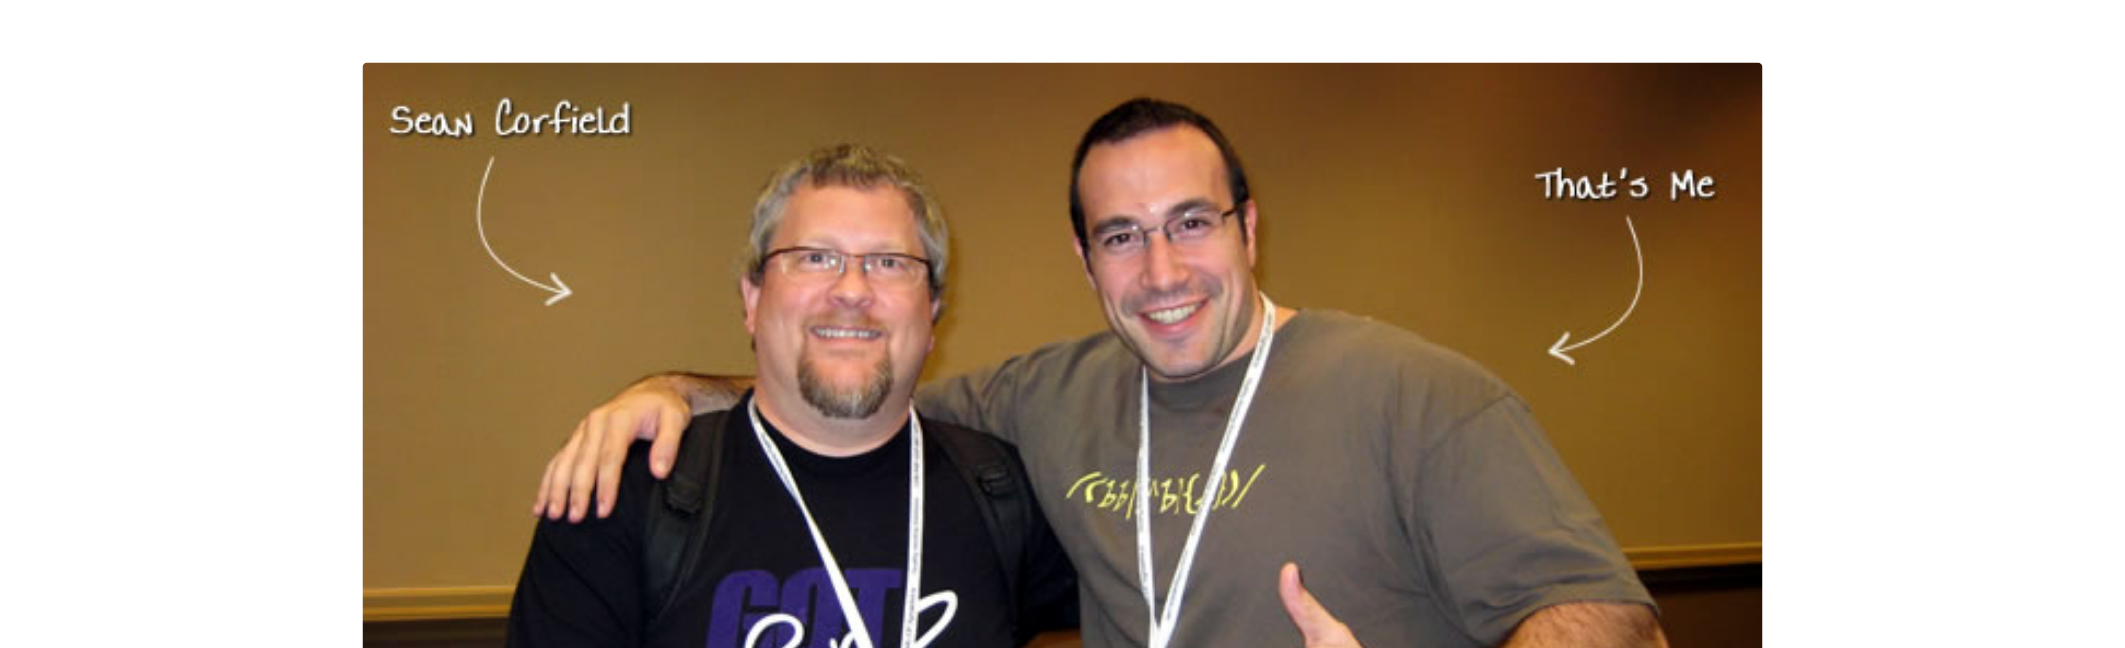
import math
import cairo

surface = cairo.ImageSurface(cairo.FORMAT_RGB24, 2125, 648)
ctx = cairo.Context(surface)
options = cairo.FontOptions()
options.set_hint_metrics(cairo.HINT_METRICS_OFF)
options.set_hint_style(cairo.HINT_STYLE_NONE)
ctx.set_font_options(options)
ctx.set_miter_limit(4)


def set_color(code):
    ctx.set_source_rgb(*(v / 255 for v in bytes.fromhex(code[-6:])))


def draw_image(path, x, y, w, h):
    ctx.save()
    ctx.set_source_surface(cairo.ImageSurface.create_from_png(path), x, y)
    ctx.rectangle(x, y, w, h)
    ctx.fill()
    ctx.restore()


set_color("#ffffff")
ctx.paint()
draw_image("assets/img1.png", 362, 62, 1401, 586)
surface.write_to_png("output.png")
